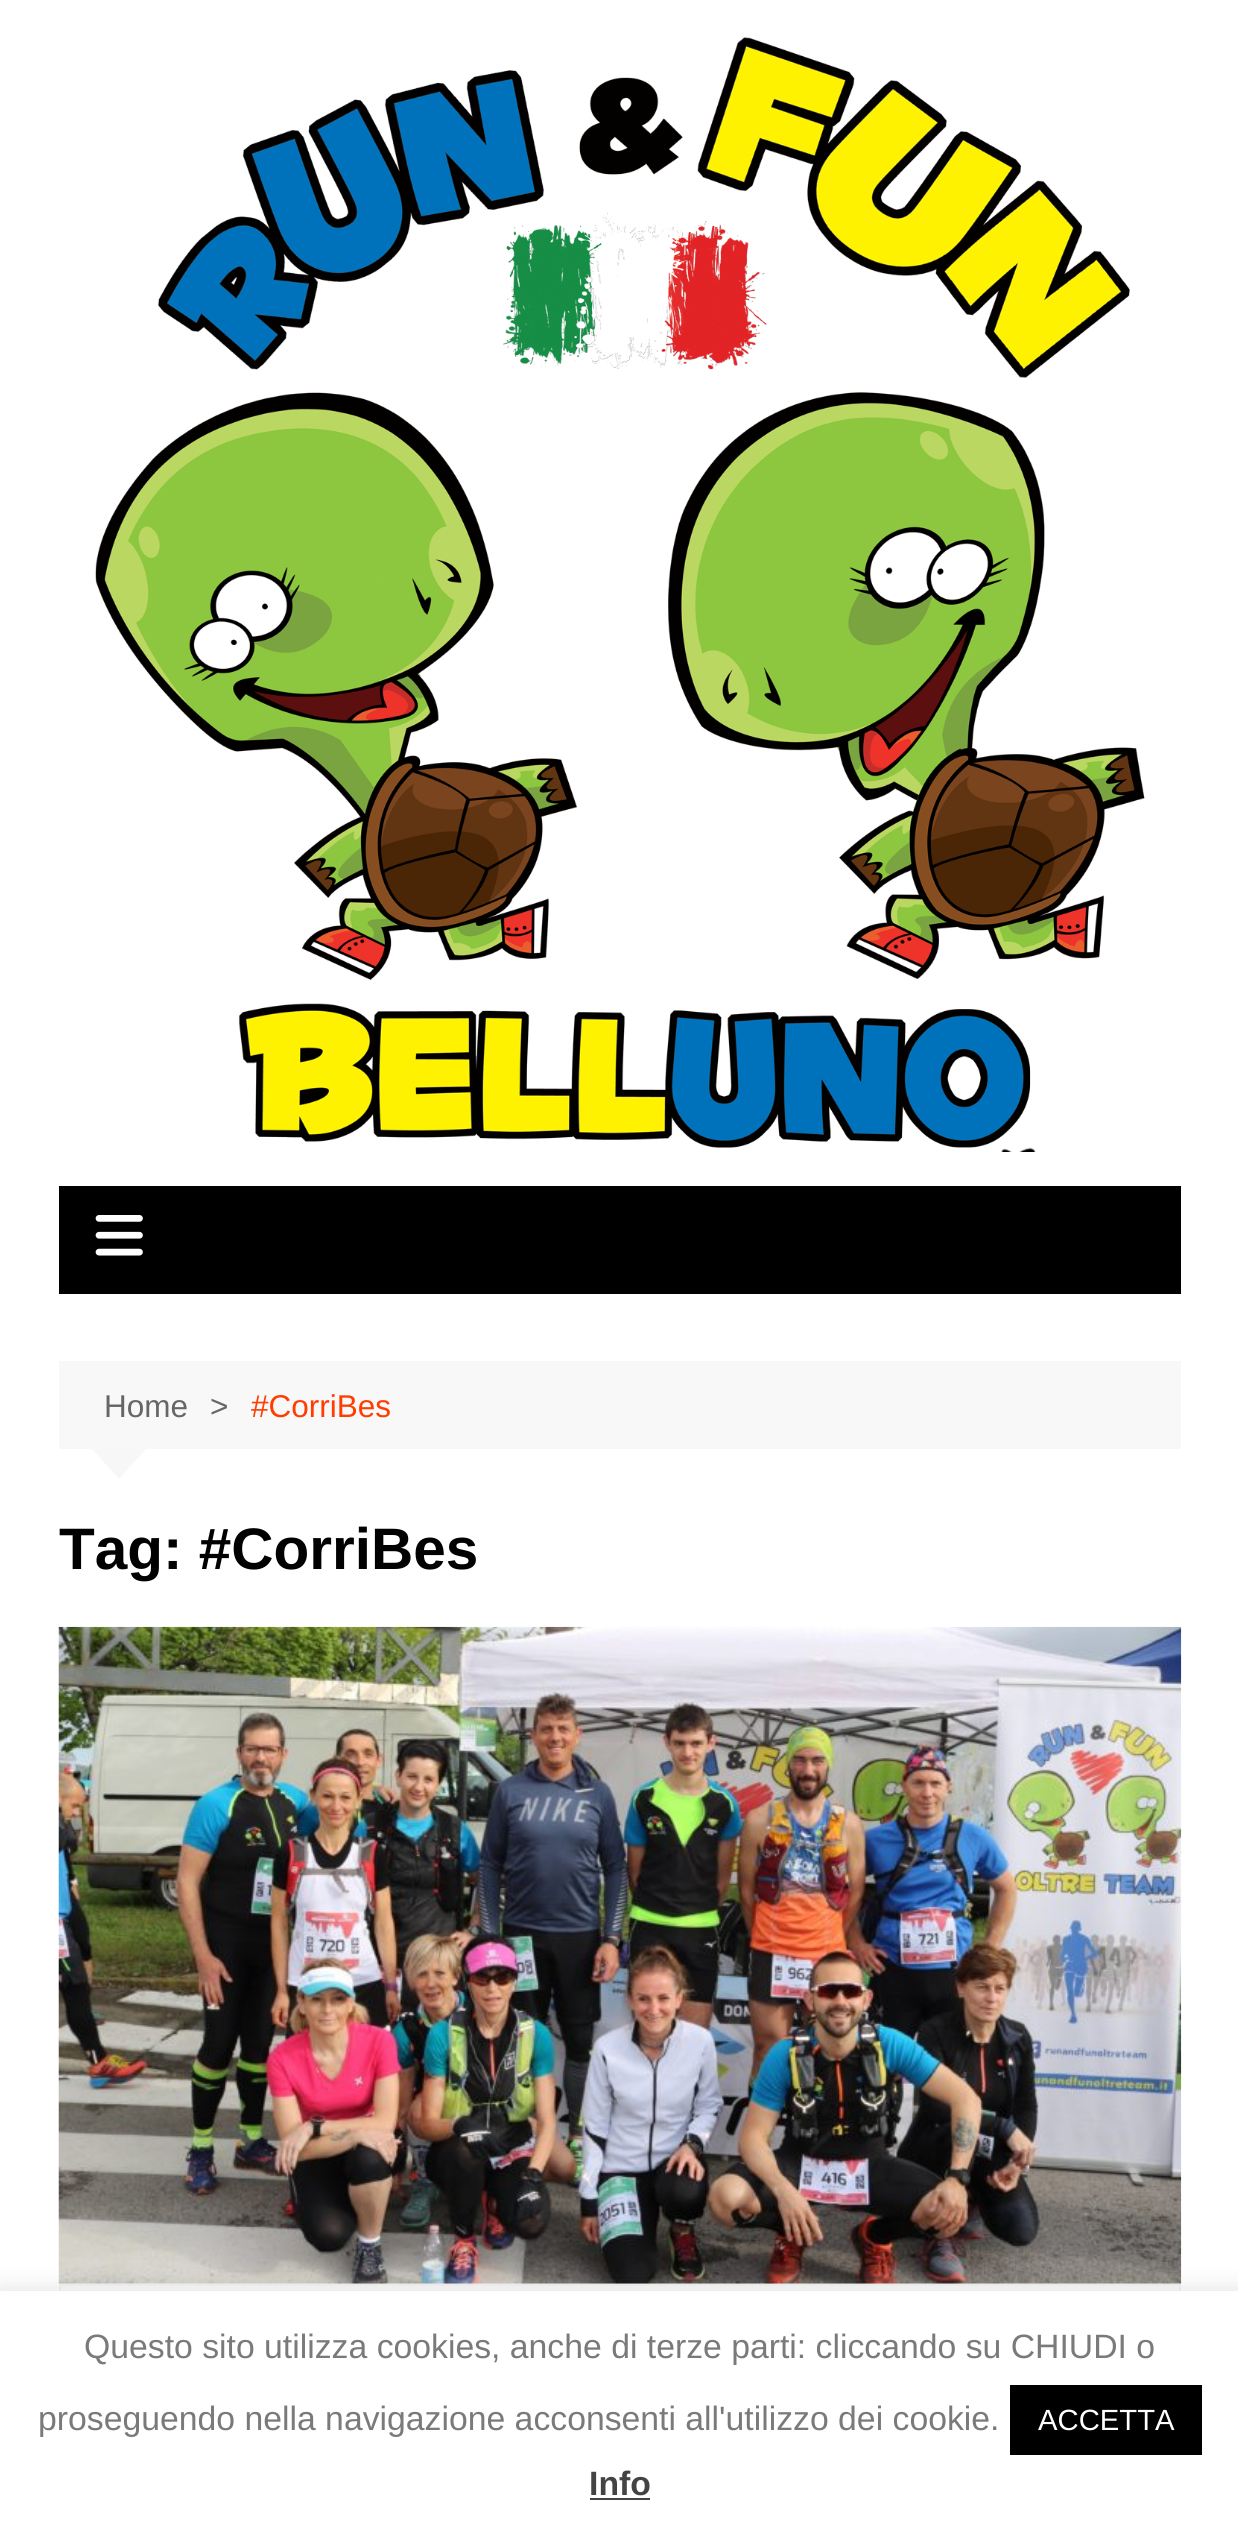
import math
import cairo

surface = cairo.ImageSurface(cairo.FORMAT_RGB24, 1238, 2537)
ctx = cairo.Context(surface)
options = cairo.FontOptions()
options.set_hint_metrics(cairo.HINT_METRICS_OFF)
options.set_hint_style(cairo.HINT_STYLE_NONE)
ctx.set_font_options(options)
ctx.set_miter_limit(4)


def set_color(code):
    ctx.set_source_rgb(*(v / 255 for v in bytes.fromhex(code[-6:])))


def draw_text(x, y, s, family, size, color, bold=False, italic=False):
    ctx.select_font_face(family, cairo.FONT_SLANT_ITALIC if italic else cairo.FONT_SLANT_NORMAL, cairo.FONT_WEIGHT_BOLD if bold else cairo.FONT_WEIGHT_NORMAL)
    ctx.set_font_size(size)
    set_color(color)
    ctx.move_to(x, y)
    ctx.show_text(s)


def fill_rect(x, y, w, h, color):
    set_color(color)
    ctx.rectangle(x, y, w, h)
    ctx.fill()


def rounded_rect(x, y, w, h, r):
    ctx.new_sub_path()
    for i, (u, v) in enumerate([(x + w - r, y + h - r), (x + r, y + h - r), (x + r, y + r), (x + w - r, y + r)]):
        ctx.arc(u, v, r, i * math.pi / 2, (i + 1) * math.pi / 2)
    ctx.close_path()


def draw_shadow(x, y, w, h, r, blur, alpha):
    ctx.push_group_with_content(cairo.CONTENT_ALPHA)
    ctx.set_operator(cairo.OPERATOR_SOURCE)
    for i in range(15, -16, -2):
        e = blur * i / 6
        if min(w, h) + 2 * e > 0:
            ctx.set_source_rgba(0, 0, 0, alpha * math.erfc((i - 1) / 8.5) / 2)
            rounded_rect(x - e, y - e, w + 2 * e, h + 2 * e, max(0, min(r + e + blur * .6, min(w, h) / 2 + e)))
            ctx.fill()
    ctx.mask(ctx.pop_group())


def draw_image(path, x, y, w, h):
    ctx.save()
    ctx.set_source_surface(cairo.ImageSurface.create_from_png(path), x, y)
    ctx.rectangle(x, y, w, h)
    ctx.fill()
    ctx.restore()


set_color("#ffffff")
ctx.paint()
draw_image("assets/img1.png", 95, 37, 1050, 1115)
fill_rect(59, 1186, 1122, 108, "#000000")
draw_image("assets/img2.png", 95, 1215, 48, 41)
fill_rect(59, 1361, 1122, 88, "#f8f8f8")
draw_text(104, 1417, "Home", "Liberation Sans", 31.5, "#666666")
draw_text(210, 1417, ">", "Liberation Sans", 31.5, "#666666")
draw_text(251, 1417, "#CorriBes", "Liberation Sans", 31.5, "#ff3d00")
set_color("#f7f7f7")
ctx.new_path()
ctx.move_to(92, 1449)
ctx.line_to(146, 1449)
ctx.line_to(119, 1479)
ctx.close_path()
ctx.fill()
draw_text(59, 1569, "Tag: #CorriBes", "Liberation Sans", 58.5, "#010101", bold=True)
draw_image("assets/img3.png", 58, 1626, 1124, 658)
fill_rect(61, 2286, 1118, 5, "#fbfbfb")
ctx.rectangle(60, 2285, 1120, 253)
set_color("#f3f3f3")
ctx.stroke()
set_color("#acabab")
draw_shadow(0, 2288, 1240, 248, 0, 11, 0.3)
fill_rect(0, 2291, 1238, 246, "#ffffff")
draw_text(84, 2358, "Questo sito utilizza cookies, anche di terze parti: cliccando su CHIUDI o", "Liberation Sans", 33.75, "#7a7a7a")
draw_text(38, 2430, "proseguendo nella navigazione acconsenti all'utilizzo dei cookie.", "Liberation Sans", 33.75, "#7a7a7a")
fill_rect(1010, 2385, 192, 70, "#000000")
draw_text(1038, 2430, "ACCETTA", "Liberation Sans", 29.25, "#ffffff")
draw_text(589, 2495, "Info", "Liberation Sans", 33.75, "#444444", bold=True)
fill_rect(590, 2498, 60, 2, "#444444")
surface.write_to_png("output.png")
